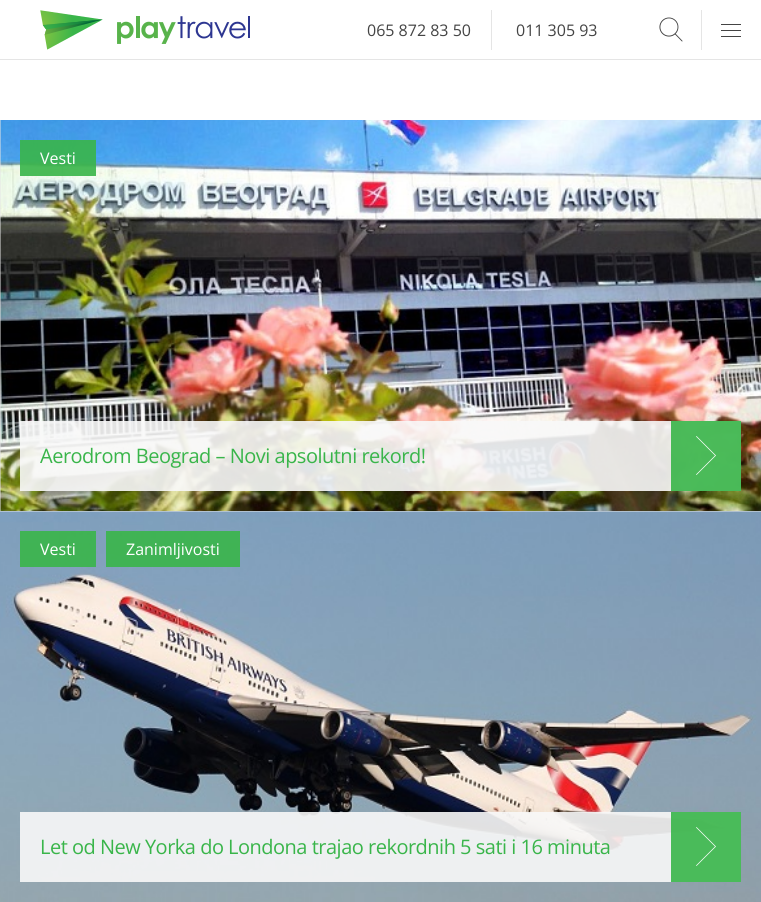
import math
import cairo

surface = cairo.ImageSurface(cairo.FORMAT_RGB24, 761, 902)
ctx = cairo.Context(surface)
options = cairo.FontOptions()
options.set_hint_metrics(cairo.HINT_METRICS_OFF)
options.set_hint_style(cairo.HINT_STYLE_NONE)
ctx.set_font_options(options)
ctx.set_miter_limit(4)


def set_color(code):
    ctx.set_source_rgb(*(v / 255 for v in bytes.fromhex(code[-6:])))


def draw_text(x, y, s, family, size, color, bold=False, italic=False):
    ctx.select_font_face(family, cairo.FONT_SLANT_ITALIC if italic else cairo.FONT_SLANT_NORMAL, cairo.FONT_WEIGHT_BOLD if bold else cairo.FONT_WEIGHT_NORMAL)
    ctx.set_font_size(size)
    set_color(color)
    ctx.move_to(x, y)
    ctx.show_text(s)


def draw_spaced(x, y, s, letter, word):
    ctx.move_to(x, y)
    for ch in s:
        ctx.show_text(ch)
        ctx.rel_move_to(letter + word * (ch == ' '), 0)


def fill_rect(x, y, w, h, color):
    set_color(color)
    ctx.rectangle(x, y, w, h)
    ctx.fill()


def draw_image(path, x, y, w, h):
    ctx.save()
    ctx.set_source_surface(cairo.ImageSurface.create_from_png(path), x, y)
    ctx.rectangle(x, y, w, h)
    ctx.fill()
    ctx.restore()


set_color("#ffffff")
ctx.paint()
draw_image("assets/img1.png", 40, 10, 210, 40)
fill_rect(491, 10, 1, 40, "#e5e5e5")
draw_text(367, 36, "065 872 83 50", "Open Sans", 16, "#444444")
draw_text(516, 36, "011 305 93", "Open Sans", 16, "#444444")
draw_image("assets/img2.png", 659, 17, 24, 25)
fill_rect(701, 10, 1, 40, "#e5e5e5")
fill_rect(721, 30, 20, 1, "#444444")
fill_rect(721, 24, 20, 1, "#444444")
fill_rect(721, 36, 20, 1, "#444444")
fill_rect(0, 59, 761, 1, "#e5e5e5")
fill_rect(0, 120, 1, 391, "#e5e5e5")
draw_image("assets/img3.png", 0, 120, 761, 391)
ctx.set_source_rgba(0.224, 0.71, 0.29, 0.9)
ctx.rectangle(20, 140, 76, 36)
ctx.fill()
draw_text(40, 164, "Vesti", "Open Sans", 16, "#ffffff")
ctx.set_source_rgba(0.973, 0.973, 0.973, 0.9)
ctx.rectangle(20, 421, 721, 70)
ctx.fill()
ctx.set_font_size(20)
set_color("#39b54a")
draw_spaced(40, 463, "Aerodrom Beograd – Novi apsolutni rekord!", -0.5, 0)
ctx.set_source_rgba(0.224, 0.71, 0.29, 0.9)
ctx.rectangle(671, 421, 70, 70)
ctx.fill()
set_color("#ffffff")
ctx.new_path()
ctx.move_to(696.5, 475)
ctx.line_to(696, 474.5)
ctx.line_to(715, 455.5)
ctx.line_to(696, 436.5)
ctx.line_to(696.5, 436)
ctx.line_to(716, 455.5)
ctx.close_path()
ctx.fill()
fill_rect(0, 511, 761, 1, "#e5e5e5")
draw_image("assets/img4.png", 0, 511, 761, 391)
ctx.set_source_rgba(0.224, 0.71, 0.29, 0.9)
ctx.rectangle(20, 531, 76, 36)
ctx.fill()
draw_text(40, 555, "Vesti", "Open Sans", 16, "#ffffff")
ctx.set_source_rgba(0.224, 0.71, 0.29, 0.9)
ctx.rectangle(106, 531, 134, 36)
ctx.fill()
draw_text(126, 555, "Zanimljivosti", "Open Sans", 16, "#ffffff")
ctx.set_source_rgba(0.973, 0.973, 0.973, 0.9)
ctx.rectangle(20, 812, 721, 70)
ctx.fill()
ctx.set_font_size(20)
set_color("#39b54a")
draw_spaced(40, 854, "Let od New Yorka do Londona trajao rekordnih 5 sati i 16 minuta", -0.5, 0)
ctx.set_source_rgba(0.224, 0.71, 0.29, 0.9)
ctx.rectangle(671, 812, 70, 70)
ctx.fill()
set_color("#ffffff")
ctx.new_path()
ctx.move_to(696.5, 866)
ctx.line_to(696, 865.5)
ctx.line_to(715, 846.5)
ctx.line_to(696, 827.5)
ctx.line_to(696.5, 827)
ctx.line_to(716, 846.5)
ctx.close_path()
ctx.fill()
surface.write_to_png("output.png")
